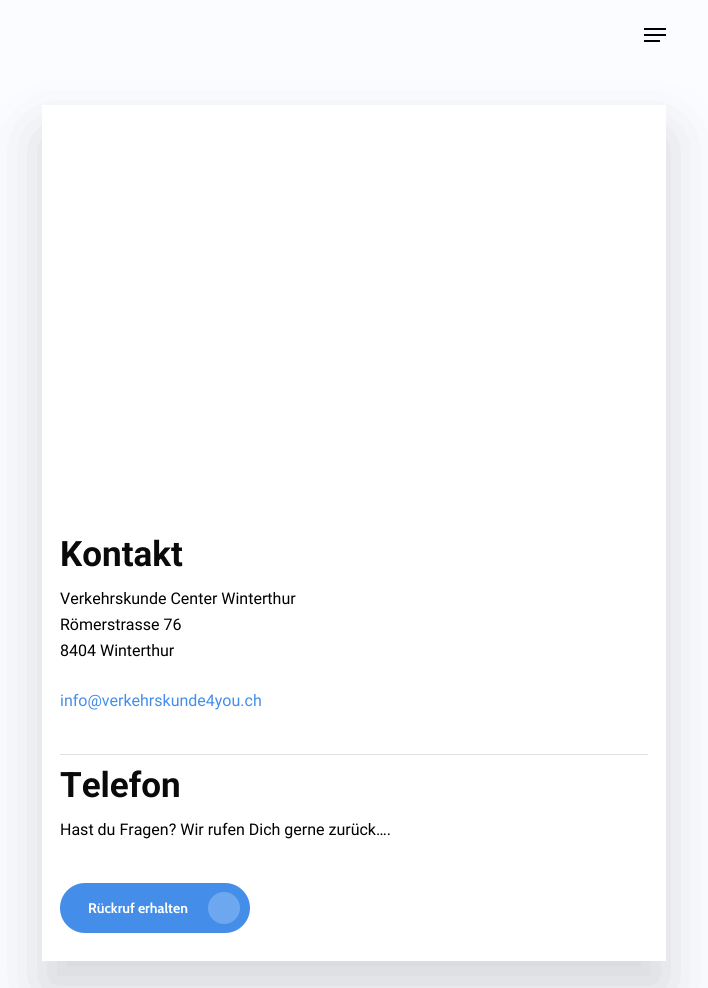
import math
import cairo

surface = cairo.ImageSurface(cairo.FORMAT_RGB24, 708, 988)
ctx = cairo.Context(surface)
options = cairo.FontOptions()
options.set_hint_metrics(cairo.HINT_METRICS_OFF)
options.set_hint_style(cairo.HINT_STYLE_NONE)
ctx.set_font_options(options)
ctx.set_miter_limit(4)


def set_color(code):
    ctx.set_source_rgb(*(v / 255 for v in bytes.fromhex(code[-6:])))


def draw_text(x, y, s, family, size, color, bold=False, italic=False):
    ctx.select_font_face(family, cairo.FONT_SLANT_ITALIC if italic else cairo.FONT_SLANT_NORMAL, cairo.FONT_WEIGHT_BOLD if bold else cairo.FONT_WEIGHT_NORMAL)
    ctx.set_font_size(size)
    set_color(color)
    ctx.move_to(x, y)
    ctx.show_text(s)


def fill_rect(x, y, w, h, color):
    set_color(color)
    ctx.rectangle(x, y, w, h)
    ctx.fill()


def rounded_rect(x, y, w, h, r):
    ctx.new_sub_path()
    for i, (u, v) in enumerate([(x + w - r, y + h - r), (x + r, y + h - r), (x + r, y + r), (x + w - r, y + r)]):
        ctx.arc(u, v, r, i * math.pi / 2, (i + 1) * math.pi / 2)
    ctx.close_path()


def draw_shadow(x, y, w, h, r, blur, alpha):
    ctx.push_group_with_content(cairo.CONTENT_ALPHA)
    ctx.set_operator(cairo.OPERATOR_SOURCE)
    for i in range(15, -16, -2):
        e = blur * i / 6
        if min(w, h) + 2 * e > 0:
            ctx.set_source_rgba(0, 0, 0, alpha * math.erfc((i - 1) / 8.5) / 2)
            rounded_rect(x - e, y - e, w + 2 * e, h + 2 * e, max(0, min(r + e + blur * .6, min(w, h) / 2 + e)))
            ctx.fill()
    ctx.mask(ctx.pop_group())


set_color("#fafcff")
ctx.paint()
fill_rect(644, 28, 22, 2, "#000000")
fill_rect(644, 40, 16, 2, "#000000")
fill_rect(644, 34, 22, 2, "#000000")
set_color("#000000")
draw_shadow(42, 135, 624, 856, 0, 30, 0.15)
fill_rect(42, 105, 624, 856, "#ffffff")
draw_text(60, 566, "Kontakt", "Roboto", 35, "#0a0a0a", bold=True)
draw_text(60, 604, "Verkehrskunde Center Winterthur", "Roboto", 16, "#000000")
draw_text(60, 630, "Römerstrasse 76", "Roboto", 16, "#000000")
draw_text(60, 656, "8404 Winterthur", "Roboto", 16, "#000000")
draw_text(60, 706, "info@verkehrskunde4you.ch", "Roboto", 16, "#448eea")
fill_rect(60, 754, 588, 1, "#e0e0e0")
draw_text(60, 797, "Telefon", "Roboto", 35, "#0a0a0a", bold=True)
draw_text(60, 835, "Hast du Fragen? Wir rufen Dich gerne zurück….", "Roboto", 16, "#000000")
set_color("#448eea")
rounded_rect(60, 883, 190, 50, 25)
ctx.fill()
draw_text(88, 913, "Rückruf erhalten", "Cabin", 14, "#ffffff", bold=True)
set_color("#6da7ef")
ctx.new_path()
ctx.arc(224, 908, 16, 0, 2 * math.pi)
ctx.fill()
surface.write_to_png("output.png")
